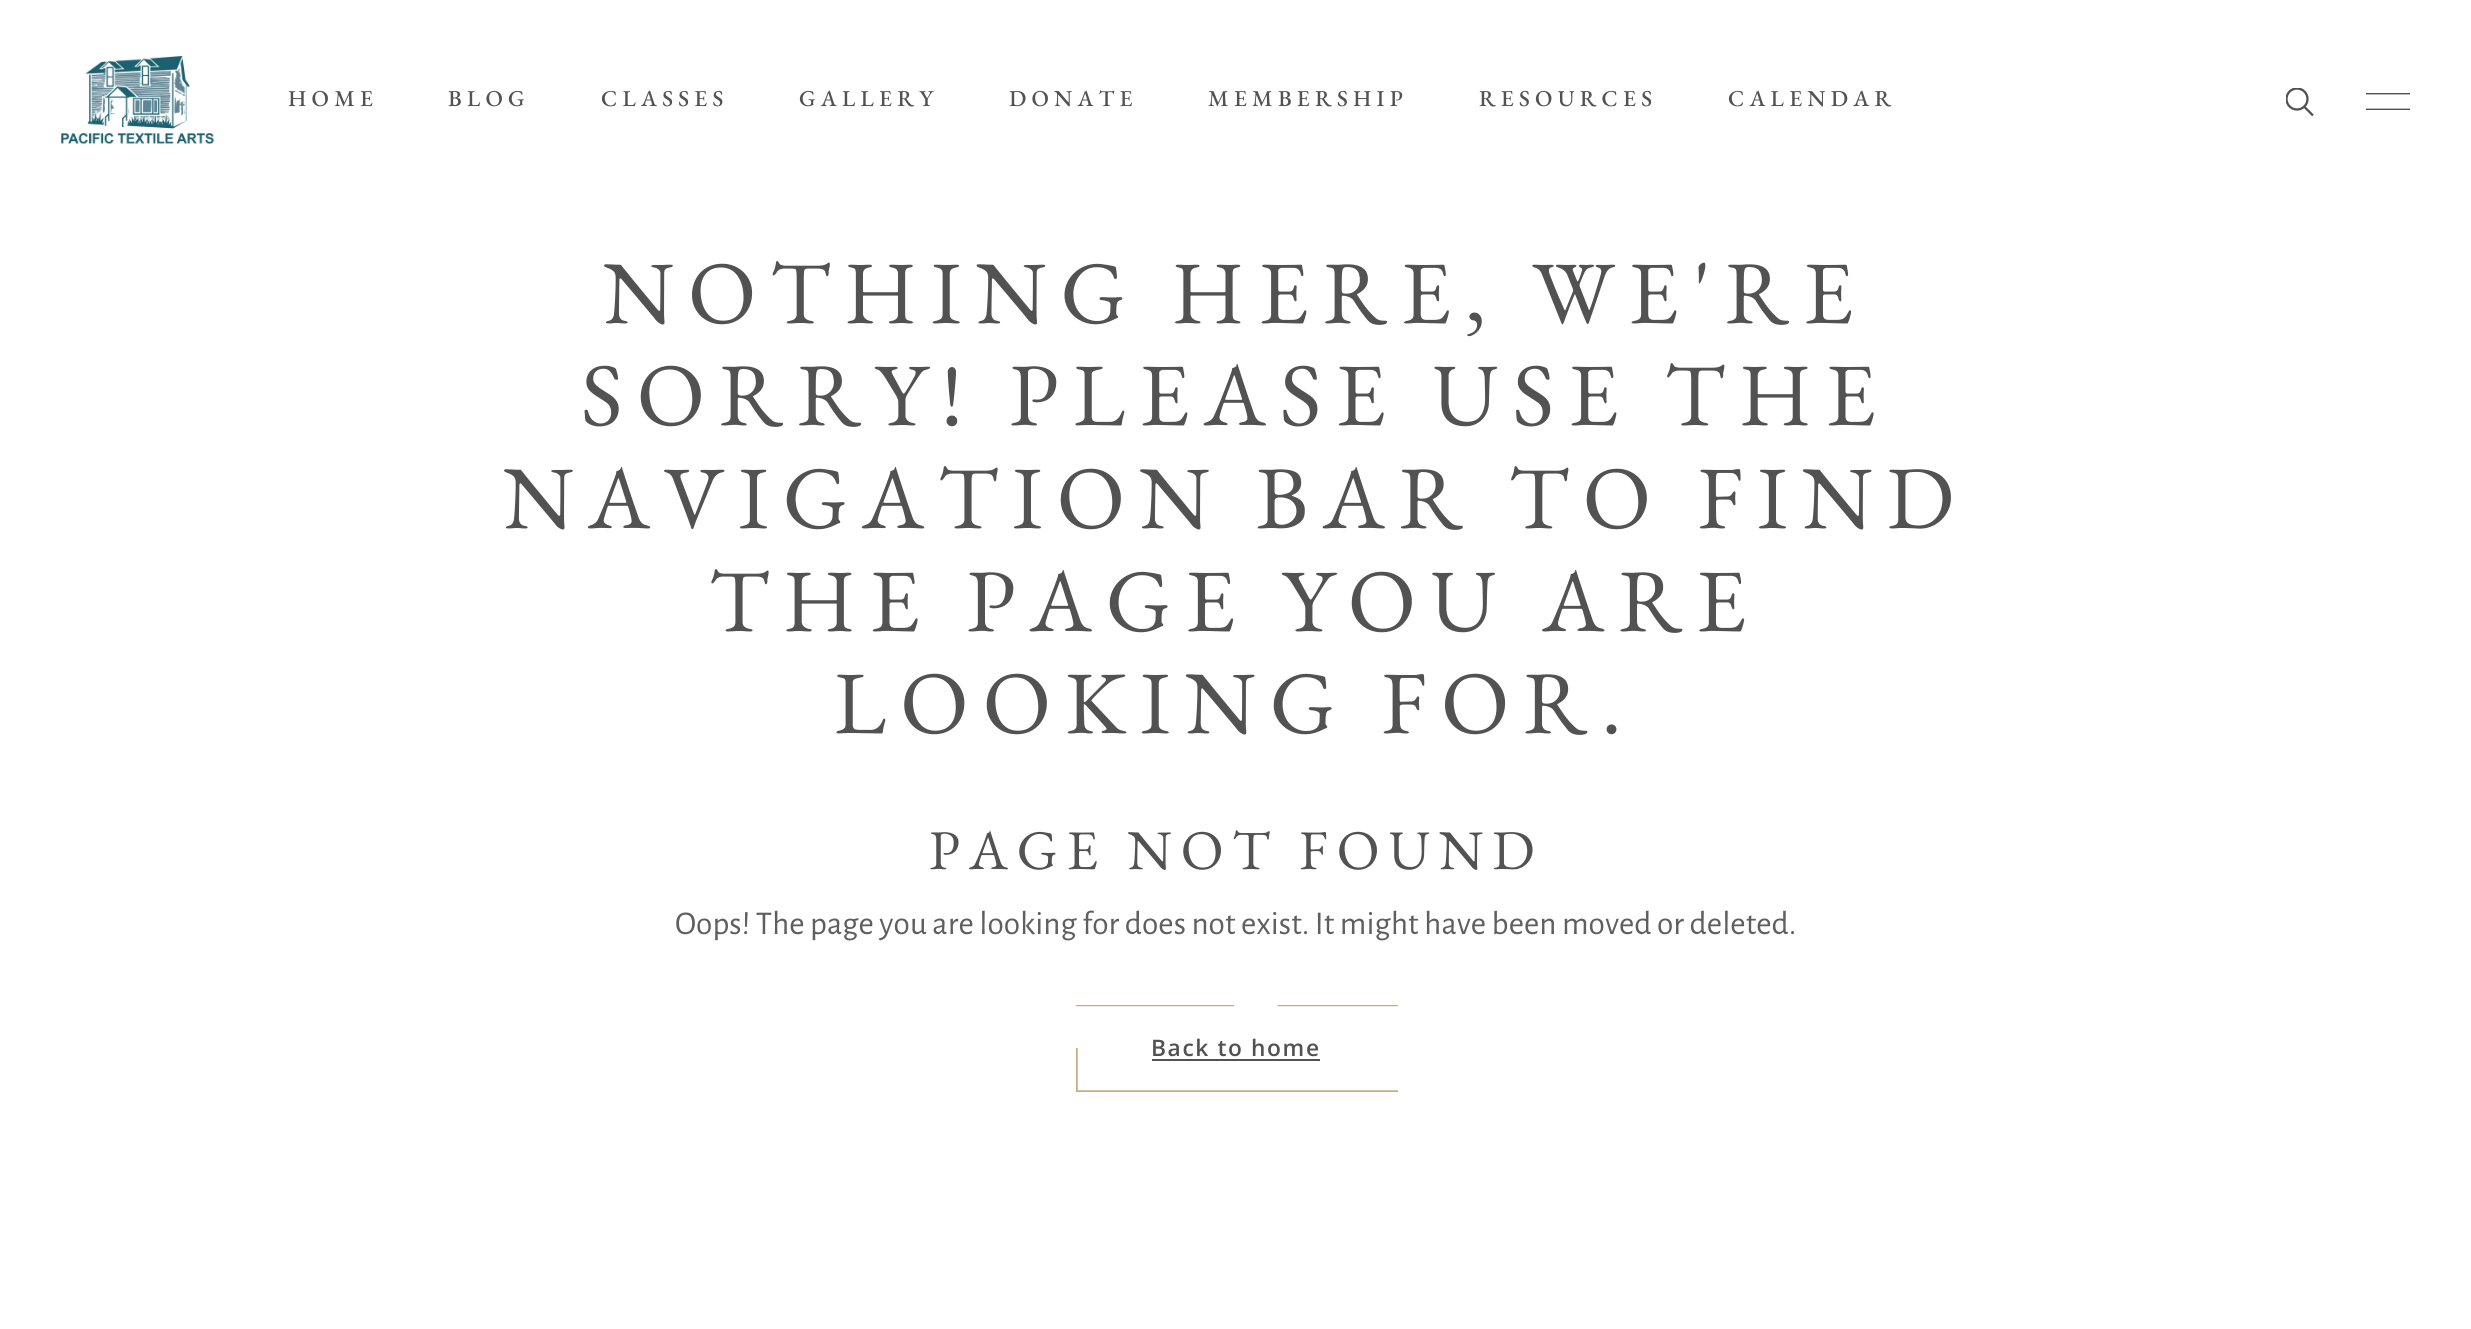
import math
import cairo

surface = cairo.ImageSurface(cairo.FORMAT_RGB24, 2471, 1329)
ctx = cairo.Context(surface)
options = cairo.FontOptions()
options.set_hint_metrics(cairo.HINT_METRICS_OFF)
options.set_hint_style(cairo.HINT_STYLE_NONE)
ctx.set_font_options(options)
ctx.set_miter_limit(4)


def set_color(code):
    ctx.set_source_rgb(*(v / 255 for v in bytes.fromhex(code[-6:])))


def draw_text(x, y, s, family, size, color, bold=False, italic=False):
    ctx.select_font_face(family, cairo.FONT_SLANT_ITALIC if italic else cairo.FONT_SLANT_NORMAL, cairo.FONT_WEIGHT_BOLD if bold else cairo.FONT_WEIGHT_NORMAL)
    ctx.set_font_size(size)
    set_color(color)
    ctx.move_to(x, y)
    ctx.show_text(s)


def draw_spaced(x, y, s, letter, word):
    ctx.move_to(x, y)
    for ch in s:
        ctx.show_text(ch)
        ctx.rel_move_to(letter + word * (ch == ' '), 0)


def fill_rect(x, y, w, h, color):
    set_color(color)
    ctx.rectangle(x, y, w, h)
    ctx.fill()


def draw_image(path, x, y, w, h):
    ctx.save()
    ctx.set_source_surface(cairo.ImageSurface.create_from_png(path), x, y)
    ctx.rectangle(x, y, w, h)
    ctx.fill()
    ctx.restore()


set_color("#ffffff")
ctx.paint()
draw_image("assets/img1.png", 61, 56, 153, 88)
ctx.select_font_face("EB Garamond Medium")
ctx.set_font_size(22.75)
set_color("#525252")
draw_spaced(288, 106, "HOME", 5.25, 0)
draw_spaced(448, 106, "BLOG", 5.25, 0)
draw_spaced(601, 106, "CLASSES", 5.25, 0)
draw_spaced(799, 106, "GALLERY", 5.25, 0)
draw_spaced(1009, 106, "DONATE", 5.25, 0)
draw_spaced(1208, 106, "MEMBERSHIP", 5.25, 0)
draw_spaced(1479, 106, "RESOURCES", 5.25, 0)
draw_spaced(1728, 106, "CALENDAR", 5.25, 0)
ctx.save()
ctx.rectangle(2286, 88, 28, 28)
ctx.clip()
ctx.arc(2297, 99, 10.5, 0, 2 * math.pi)
ctx.set_line_width(2.3)
ctx.stroke()
ctx.restore()
ctx.new_path()
ctx.move_to(2313, 115.5)
ctx.line_to(2304.5, 107)
ctx.set_line_width(2.3)
ctx.stroke()
ctx.save()
ctx.rectangle(2366, 93, 44, 17)
ctx.clip()
ctx.new_path()
ctx.move_to(2366, 93.5)
ctx.line_to(2410, 93.5)
ctx.move_to(2366, 109.5)
ctx.line_to(2410, 109.5)
ctx.set_line_width(1.8)
ctx.stroke()
ctx.restore()
ctx.select_font_face("EB Garamond")
ctx.set_font_size(89.25)
draw_spaced(603, 323, "NOTHING HERE, WE'RE", 14.25, 0)
draw_spaced(581, 425, "SORRY! PLEASE USE THE", 14.25, 0)
draw_spaced(503, 528, "NAVIGATION BAR TO FIND", 14.25, 0)
draw_spaced(709, 631, "THE PAGE YOU ARE", 14.25, 0)
draw_spaced(834, 733, "LOOKING FOR.", 14.25, 0)
ctx.set_font_size(56)
draw_spaced(929, 869, "PAGE NOT FOUND", 9, 0)
draw_text(675, 934, "Oops! The page you are looking for does not exist. It might have been moved or deleted.", "Alegreya Sans", 33.25, "#5f5f5f")
ctx.select_font_face("Open Sans SemiBold")
ctx.set_font_size(22.75)
set_color("#525252")
draw_spaced(1151, 1056, "Back to home", 1.6, 0)
fill_rect(1152, 1059, 168, 2, "#525252")
ctx.save()
ctx.rectangle(1076, 1005, 322, 87)
ctx.clip()
ctx.new_path()
ctx.move_to(1076, 1004.5)
ctx.line_to(1234, 1004.5)
ctx.move_to(1277.5, 1004.5)
ctx.line_to(1400, 1004.5)
ctx.line_to(1400, 1092)
ctx.line_to(1076, 1092)
ctx.line_to(1076, 1048)
set_color("#c9ab81")
ctx.set_line_width(3.5)
ctx.stroke()
ctx.restore()
surface.write_to_png("output.png")
